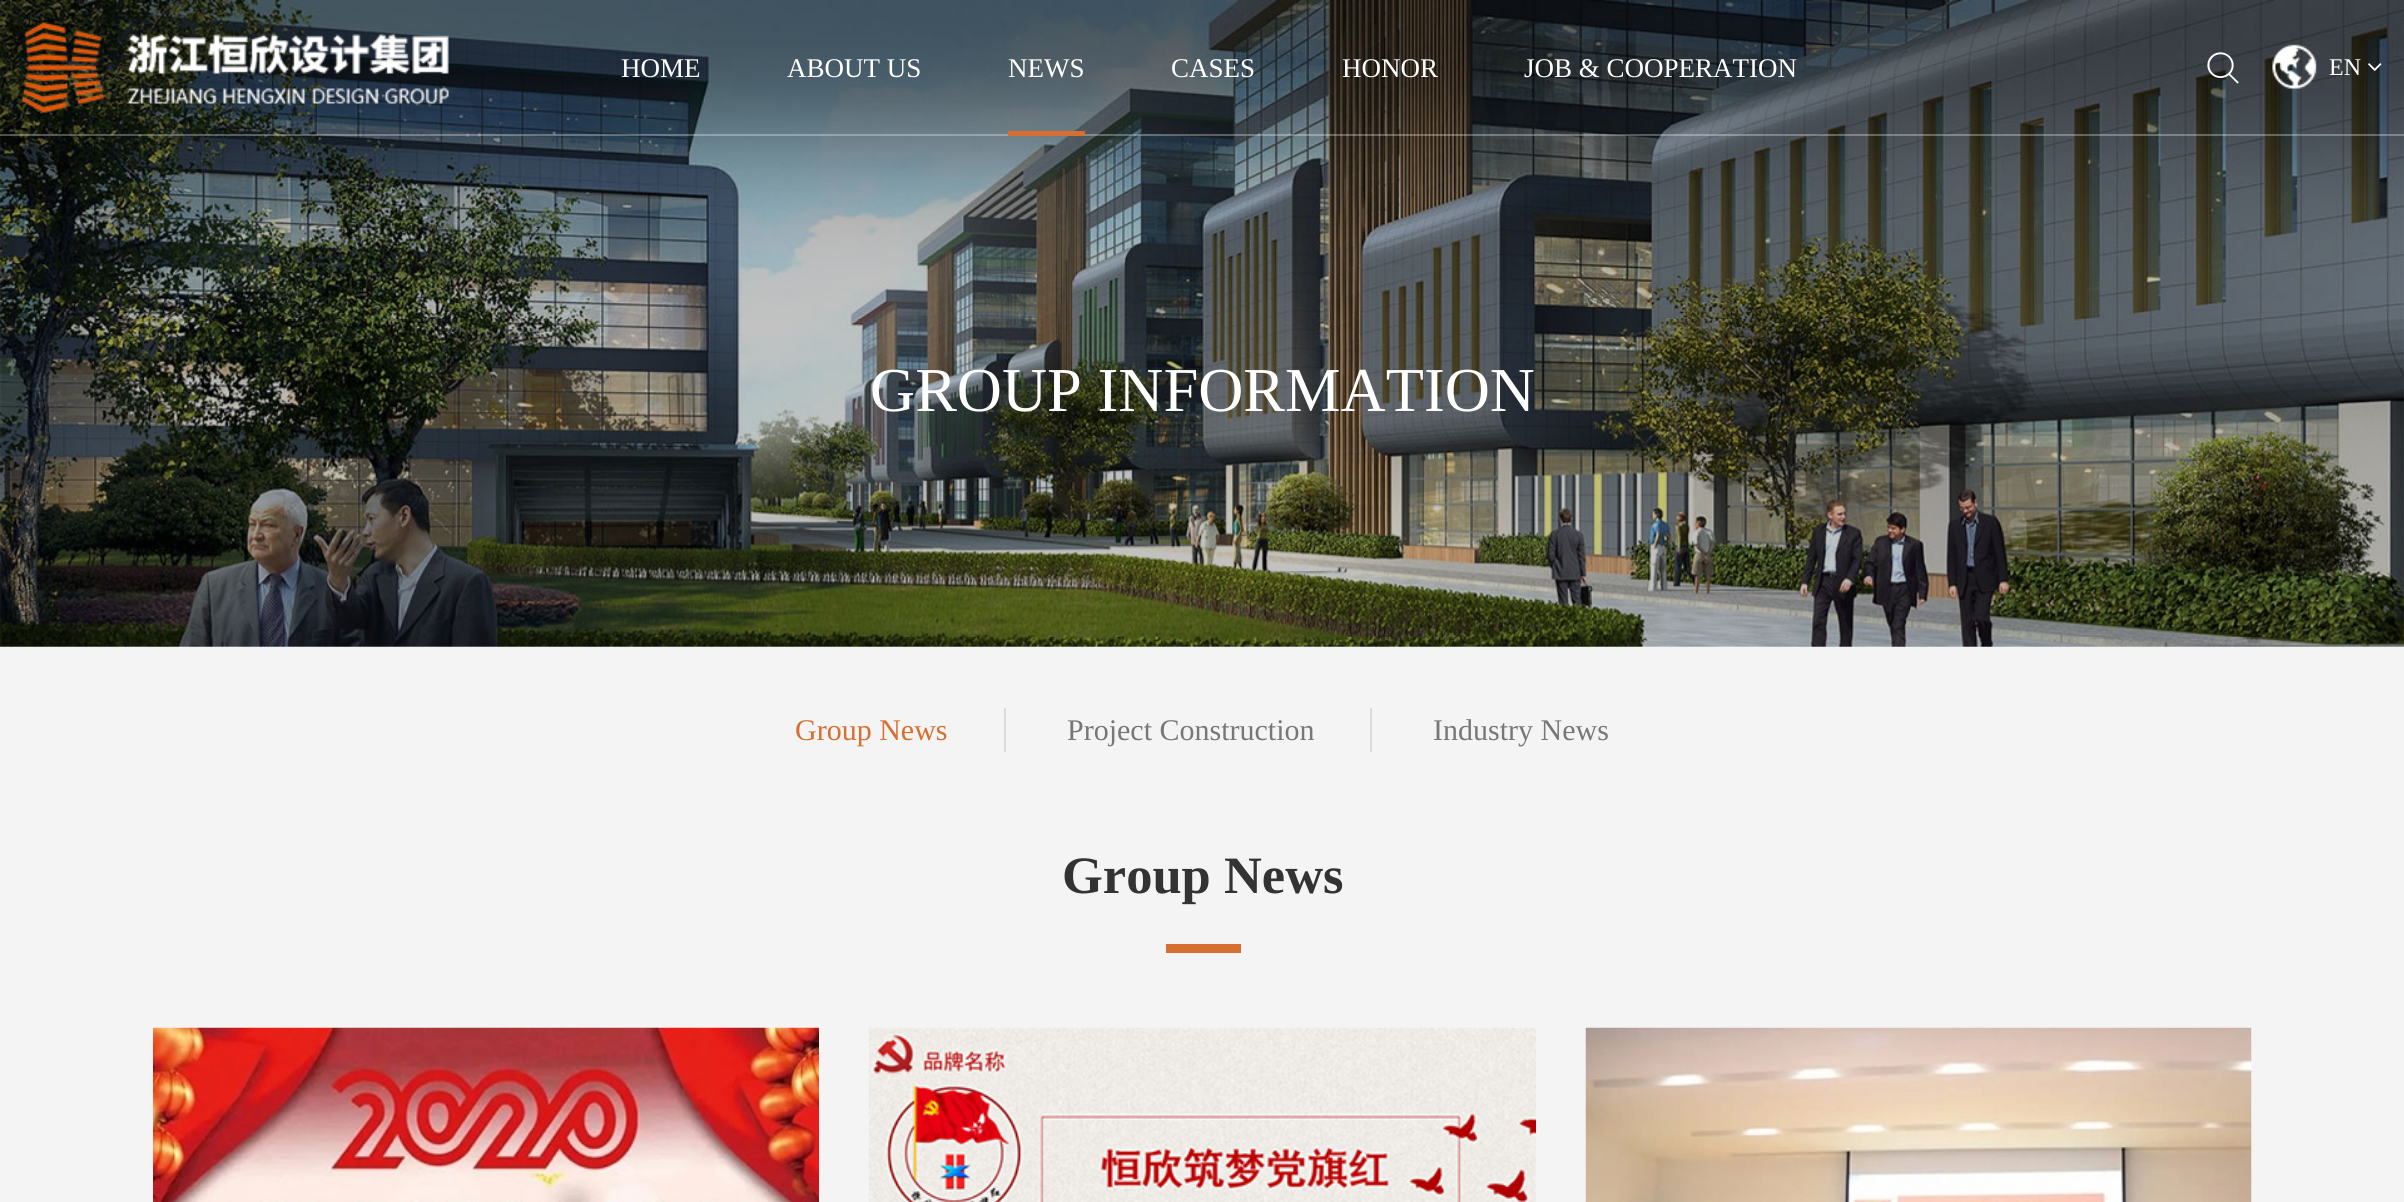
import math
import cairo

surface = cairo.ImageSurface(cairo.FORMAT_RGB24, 2404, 1202)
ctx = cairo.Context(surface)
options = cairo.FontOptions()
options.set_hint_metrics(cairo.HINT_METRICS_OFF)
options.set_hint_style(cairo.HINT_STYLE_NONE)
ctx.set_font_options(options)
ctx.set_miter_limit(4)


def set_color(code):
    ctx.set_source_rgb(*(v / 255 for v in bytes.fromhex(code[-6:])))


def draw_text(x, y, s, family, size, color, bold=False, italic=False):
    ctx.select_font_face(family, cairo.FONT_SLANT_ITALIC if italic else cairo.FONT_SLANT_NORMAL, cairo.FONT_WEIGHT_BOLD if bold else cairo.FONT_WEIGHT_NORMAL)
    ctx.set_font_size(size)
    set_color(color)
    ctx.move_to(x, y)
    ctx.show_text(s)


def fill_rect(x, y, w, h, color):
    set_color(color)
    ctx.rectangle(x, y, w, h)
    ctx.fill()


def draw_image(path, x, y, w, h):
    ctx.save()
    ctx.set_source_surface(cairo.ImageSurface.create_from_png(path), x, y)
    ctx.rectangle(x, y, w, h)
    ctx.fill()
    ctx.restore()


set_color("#ffffff")
ctx.paint()
draw_image("assets/img5.png", 0, 646, 2404, 1)
draw_image("assets/img6.png", 0, 0, 2404, 647)
ctx.set_source_rgba(1, 1, 1, 0.3)
ctx.rectangle(0, 134, 2404, 2)
ctx.fill()
draw_image("assets/img1.png", 22, 22, 427, 91)
draw_text(621, 77, "HOME", "Liberation Serif", 27, "#ffffff")
draw_text(787, 77, "ABOUT US", "Liberation Serif", 27, "#ffffff")
draw_text(1008, 77, "NEWS", "Liberation Serif", 27, "#ffffff")
fill_rect(1008, 131, 77, 5, "#d66f30")
draw_text(1171, 77, "CASES", "Liberation Serif", 27, "#ffffff")
draw_text(1342, 77, "HONOR", "Liberation Serif", 27, "#ffffff")
draw_text(1524, 77, "JOB & COOPERATION", "Liberation Serif", 27, "#ffffff")
draw_image("assets/img2.png", 2207, 52, 32, 32)
draw_image("assets/img3.png", 2272, 44, 45, 45)
draw_text(2329, 75, "EN", "Liberation Serif", 24, "#ffffff")
draw_image("assets/img4.png", 2368, 63, 14, 8)
draw_text(870, 411, "GROUP INFORMATION", "Liberation Serif", 62.5, "#ffffff")
fill_rect(0, 647, 2404, 555, "#f4f4f4")
fill_rect(1004, 708, 2, 44, "#dbdbdb")
draw_text(795, 740, "Group News", "Liberation Serif", 30, "#d66f30")
fill_rect(1370, 708, 2, 44, "#dbdbdb")
draw_text(1067, 740, "Project Construction", "Liberation Serif", 30, "#777777")
draw_text(1433, 740, "Industry News", "Liberation Serif", 30, "#777777")
draw_text(1062, 893, "Group News", "Liberation Serif", 52.5, "#333333", bold=True)
fill_rect(1166, 944, 75, 9, "#d66f30")
draw_image("assets/img7.png", 153, 1027, 666, 175)
draw_image("assets/img8.png", 868, 1027, 668, 175)
draw_image("assets/img9.png", 1585, 1027, 667, 175)
surface.write_to_png("output.png")
